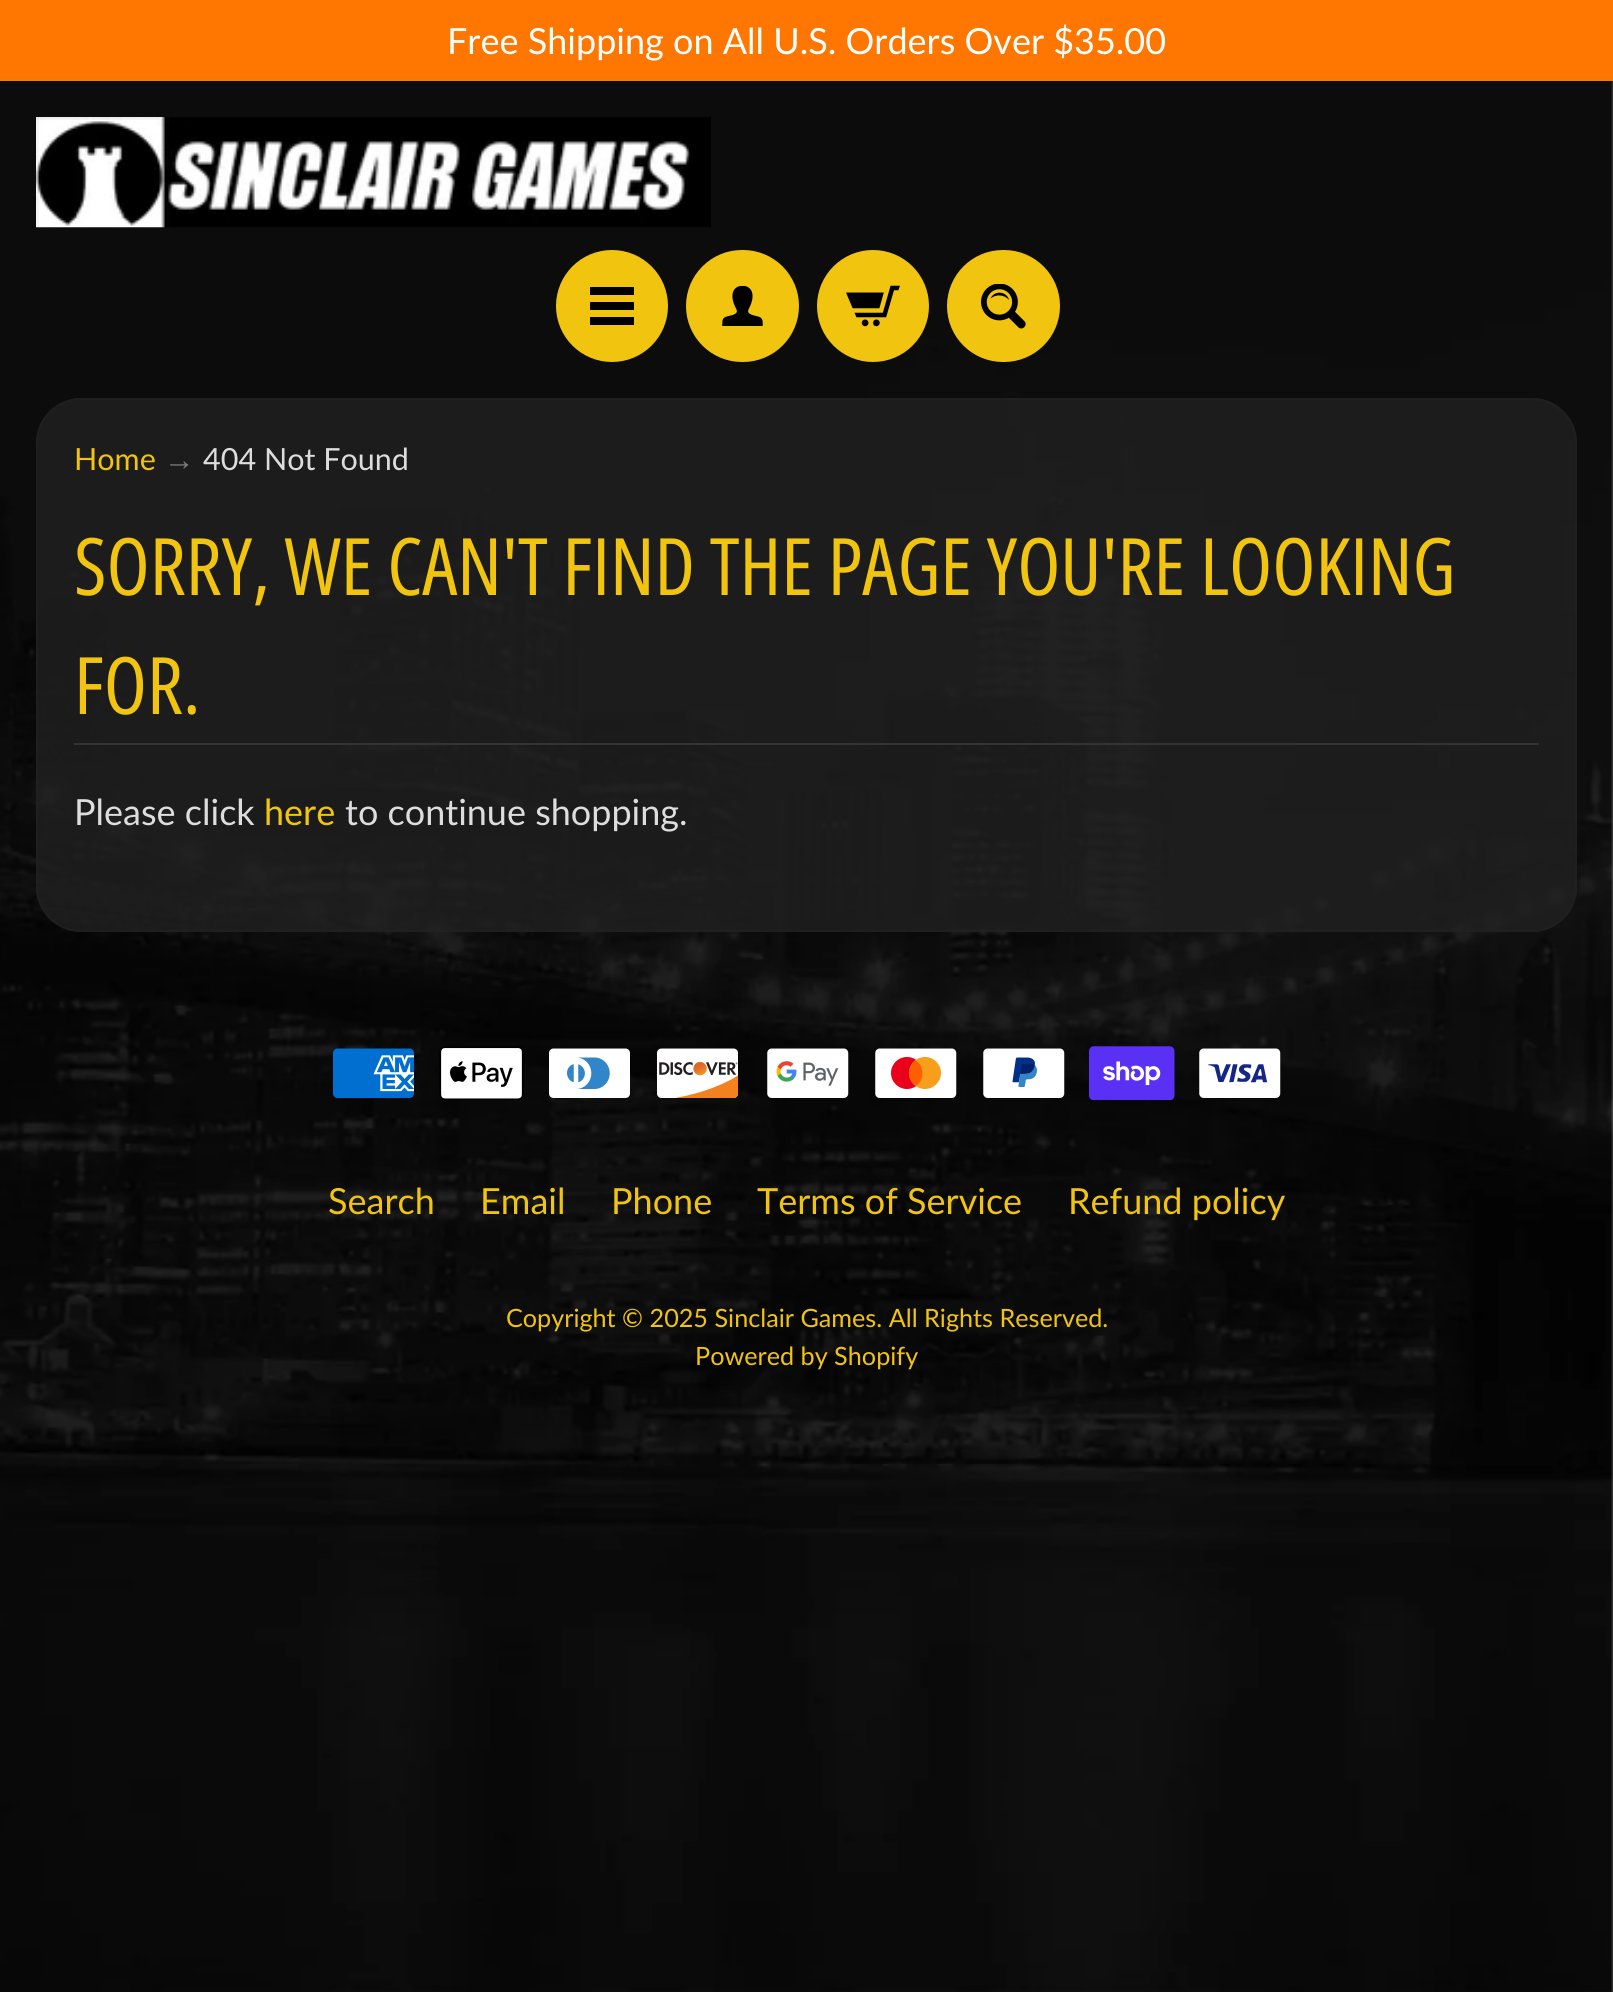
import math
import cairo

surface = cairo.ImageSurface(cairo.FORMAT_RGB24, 1613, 1992)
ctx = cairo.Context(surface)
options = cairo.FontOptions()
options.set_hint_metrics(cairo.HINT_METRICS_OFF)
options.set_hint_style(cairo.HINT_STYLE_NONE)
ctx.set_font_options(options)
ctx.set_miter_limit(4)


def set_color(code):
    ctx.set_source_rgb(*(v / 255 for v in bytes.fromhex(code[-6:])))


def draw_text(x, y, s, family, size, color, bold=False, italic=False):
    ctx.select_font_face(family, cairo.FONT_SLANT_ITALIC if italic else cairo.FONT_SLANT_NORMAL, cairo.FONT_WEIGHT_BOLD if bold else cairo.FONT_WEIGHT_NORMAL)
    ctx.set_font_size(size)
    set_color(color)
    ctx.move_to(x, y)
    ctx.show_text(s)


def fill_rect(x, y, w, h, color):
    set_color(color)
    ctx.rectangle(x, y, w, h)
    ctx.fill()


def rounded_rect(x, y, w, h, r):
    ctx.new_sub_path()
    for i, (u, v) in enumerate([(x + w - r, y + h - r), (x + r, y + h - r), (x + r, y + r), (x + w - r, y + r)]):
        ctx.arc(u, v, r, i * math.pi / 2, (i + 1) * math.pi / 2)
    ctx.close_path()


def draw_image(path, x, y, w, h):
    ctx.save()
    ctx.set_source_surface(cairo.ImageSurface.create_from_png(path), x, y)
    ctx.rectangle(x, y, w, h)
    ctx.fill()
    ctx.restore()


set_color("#ffffff")
ctx.paint()
draw_image("assets/img1.png", 0, 81, 1613, 1911)
fill_rect(0, 0, 1613, 81, "#ff7700")
draw_text(447, 54, "Free Shipping on All U.S. Orders Over $35.00", "Lato", 36, "#ffffff")
draw_image("assets/img2.png", 36, 117, 675, 111)
set_color("#f1c40f")
ctx.arc(612, 306, 52.5, 0, 2 * math.pi)
ctx.fill_preserve()
ctx.set_line_width(7)
ctx.stroke()
set_color("#000000")
ctx.new_path()
ctx.move_to(634, 295)
ctx.line_to(590, 295)
ctx.line_to(590, 287)
ctx.line_to(634, 287)
ctx.close_path()
ctx.move_to(634, 302)
ctx.line_to(590, 302)
ctx.line_to(590, 310)
ctx.line_to(634, 310)
ctx.close_path()
ctx.move_to(634, 317)
ctx.line_to(590, 317)
ctx.line_to(590, 325)
ctx.line_to(634, 325)
ctx.close_path()
ctx.fill()
set_color("#f1c40f")
rounded_rect(689.5, 253.5, 106, 105, 52.5)
ctx.fill_preserve()
ctx.stroke()
draw_image("assets/img3.png", 722, 286, 41, 40)
ctx.arc(873, 306, 52.5, 0, 2 * math.pi)
ctx.fill_preserve()
ctx.stroke()
draw_image("assets/img4.png", 846, 285, 54, 42)
rounded_rect(950.5, 253.5, 106, 105, 52.5)
ctx.fill_preserve()
ctx.stroke()
draw_image("assets/img5.png", 981, 284, 45, 45)
ctx.set_source_rgba(0.133, 0.133, 0.133, 0.75)
rounded_rect(36, 398, 1541, 534, 45)
ctx.fill()
rounded_rect(37, 399, 1539, 532, 44)
ctx.set_source_rgba(0.133, 0.133, 0.133, 0.7)
ctx.set_line_width(2)
ctx.stroke()
draw_text(74, 470, "Home", "Lato", 30.5, "#f1c40f")
draw_text(164, 470, "→", "Liberation Sans", 30.5, "#7d7d7d")
draw_text(203, 470, "404 Not Found", "Lato", 30.5, "#dddddd")
fill_rect(74, 743, 1465, 2, "#333333")
draw_text(74, 595, "SORRY, WE CAN'T FIND THE PAGE YOU'RE LOOKING", "Open Sans Condensed", 79.25, "#f1c40f")
draw_text(74, 714, "FOR.", "Open Sans Condensed", 79.25, "#f1c40f")
draw_text(74, 825, "Please click", "Lato", 36, "#dddddd")
draw_text(264, 825, "here", "Lato", 36, "#f1c40f")
draw_text(345, 825, "to continue shopping.", "Lato", 36, "#dddddd")
draw_image("assets/img6.png", 333, 1048, 81, 50)
draw_image("assets/img7.png", 439, 1046, 85, 54)
draw_image("assets/img8.png", 549, 1048, 81, 50)
draw_image("assets/img9.png", 657, 1048, 82, 50)
draw_image("assets/img10.png", 767, 1048, 82, 50)
draw_image("assets/img11.png", 875, 1048, 82, 50)
draw_image("assets/img12.png", 983, 1048, 82, 50)
draw_image("assets/img13.png", 1089, 1046, 86, 54)
draw_image("assets/img14.png", 1199, 1048, 82, 50)
draw_text(328, 1214, "Search", "Lato", 36, "#f1c40f")
draw_text(480, 1214, "Email", "Lato", 36, "#f1c40f")
draw_text(611, 1214, "Phone", "Lato", 36, "#f1c40f")
draw_text(757, 1214, "Terms of Service", "Lato", 36, "#f1c40f")
draw_text(1068, 1214, "Refund policy", "Lato", 36, "#f1c40f")
draw_text(506, 1327, "Copyright © 2025 Sinclair Games. All Rights Reserved.", "Lato", 25.2, "#f1c40f")
draw_text(695, 1365, "Powered by Shopify", "Lato", 25.2, "#f1c40f")
surface.write_to_png("output.png")
